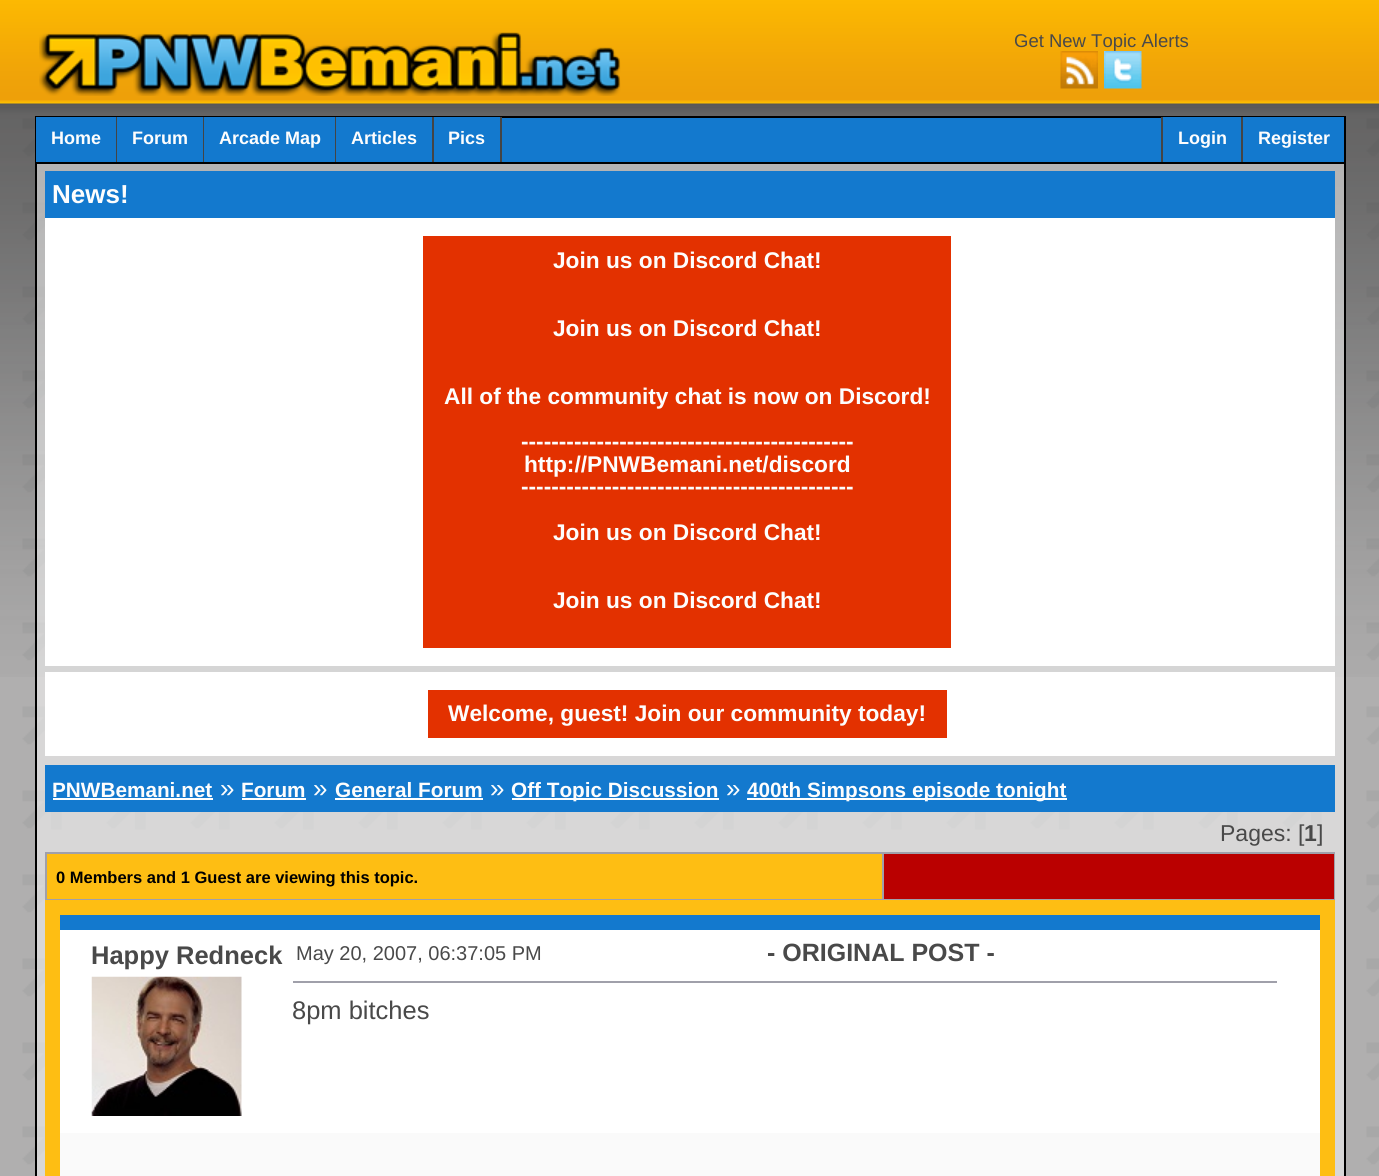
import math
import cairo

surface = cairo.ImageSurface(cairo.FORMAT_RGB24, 1379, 1176)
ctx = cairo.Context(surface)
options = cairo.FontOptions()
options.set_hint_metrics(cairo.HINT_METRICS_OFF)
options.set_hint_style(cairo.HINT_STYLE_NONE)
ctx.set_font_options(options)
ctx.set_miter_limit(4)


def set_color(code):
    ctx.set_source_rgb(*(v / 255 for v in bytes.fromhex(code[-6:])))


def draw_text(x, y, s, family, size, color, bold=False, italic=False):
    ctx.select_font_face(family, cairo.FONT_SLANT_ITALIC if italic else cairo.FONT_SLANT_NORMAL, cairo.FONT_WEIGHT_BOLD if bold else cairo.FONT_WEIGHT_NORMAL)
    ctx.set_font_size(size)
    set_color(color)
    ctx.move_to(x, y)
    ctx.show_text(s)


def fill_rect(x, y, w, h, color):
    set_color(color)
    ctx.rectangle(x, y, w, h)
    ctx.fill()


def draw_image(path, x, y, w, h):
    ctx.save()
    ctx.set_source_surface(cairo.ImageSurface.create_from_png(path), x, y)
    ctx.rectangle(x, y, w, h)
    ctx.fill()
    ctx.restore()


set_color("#ffffff")
ctx.paint()
draw_image("assets/img1.png", 0, 103, 1379, 1073)
draw_image("assets/img2.png", 0, 0, 1379, 677)
draw_image("assets/img3.png", 39, 32, 582, 64)
draw_text(1014, 47, "Get New Topic Alerts", "Liberation Sans", 18.5, "#494949")
draw_image("assets/img4.png", 1060, 51, 38, 38)
draw_image("assets/img5.png", 1104, 51, 38, 38)
ctx.set_source_rgba(1, 1, 1, 0.5)
ctx.rectangle(37, 164, 1307, 1012)
ctx.fill()
fill_rect(1344, 116, 2, 1060, "#000000")
fill_rect(36, 116, 1308, 2, "#000000")
fill_rect(36, 162, 1308, 2, "#000000")
fill_rect(35, 116, 2, 1060, "#000000")
fill_rect(502, 118, 659, 44, "#1379ce")
fill_rect(36, 117, 80, 45, "#1379ce")
fill_rect(116, 117, 1, 45, "#444444")
draw_text(51, 144, "Home", "Liberation Sans", 18, "#fdfdfd", bold=True)
fill_rect(117, 117, 86, 45, "#1379ce")
fill_rect(203, 117, 1, 45, "#444444")
draw_text(132, 144, "Forum", "Liberation Sans", 18, "#fdfdfd", bold=True)
fill_rect(204, 117, 131, 45, "#1379ce")
fill_rect(335, 117, 1, 45, "#444444")
draw_text(219, 144, "Arcade Map", "Liberation Sans", 18, "#fdfdfd", bold=True)
fill_rect(336, 117, 96, 45, "#1379ce")
fill_rect(432, 117, 2, 45, "#444444")
draw_text(351, 144, "Articles", "Liberation Sans", 18, "#fdfdfd", bold=True)
fill_rect(434, 117, 66, 45, "#1379ce")
fill_rect(500, 117, 2, 45, "#444444")
draw_text(448, 144, "Pics", "Liberation Sans", 18, "#fdfdfd", bold=True)
fill_rect(1163, 117, 78, 45, "#1379ce")
fill_rect(1161, 117, 2, 45, "#444444")
draw_text(1178, 144, "Login", "Liberation Sans", 18, "#fdfdfd", bold=True)
fill_rect(1243, 117, 101, 45, "#1379ce")
fill_rect(1241, 117, 2, 45, "#444444")
draw_text(1258, 144, "Register", "Liberation Sans", 18, "#fdfdfd", bold=True)
fill_rect(45, 171, 1290, 47, "#1379ce")
draw_text(52, 203, "News!", "Liberation Sans", 26, "#fdfdfd", bold=True)
fill_rect(45, 218, 1290, 448, "#ffffff")
fill_rect(423, 236, 528, 412, "#e33100")
draw_text(553, 268, "Join us on Discord Chat!", "Liberation Sans", 22.7, "#fdfdfd", bold=True)
draw_text(553, 336, "Join us on Discord Chat!", "Liberation Sans", 22.7, "#fdfdfd", bold=True)
draw_text(444, 404, "All of the community chat is now on Discord!", "Liberation Sans", 22.7, "#fdfdfd", bold=True)
draw_text(521, 449, "--------------------------------------------", "Liberation Sans", 22.7, "#fdfdfd", bold=True)
draw_text(524, 472, "http://PNWBemani.net/discord", "Liberation Sans", 22.7, "#fdfdfd", bold=True)
draw_text(521, 494, "--------------------------------------------", "Liberation Sans", 22.7, "#fdfdfd", bold=True)
draw_text(553, 540, "Join us on Discord Chat!", "Liberation Sans", 22.7, "#fdfdfd", bold=True)
draw_text(553, 608, "Join us on Discord Chat!", "Liberation Sans", 22.7, "#fdfdfd", bold=True)
fill_rect(45, 672, 1290, 84, "#ffffff")
fill_rect(428, 690, 519, 48, "#e33100")
draw_text(448, 721, "Welcome, guest! Join our community today!", "Liberation Sans", 22.7, "#fdfdfd", bold=True)
fill_rect(45, 765, 1290, 47, "#1379ce")
draw_text(52, 797, "PNWBemani.net", "Liberation Sans", 20.75, "#fdfdfd", bold=True)
fill_rect(53, 798, 160, 2, "#ffffff")
draw_text(220, 797, "»", "Liberation Sans", 26, "#fdfdfd")
draw_text(241, 797, "Forum", "Liberation Sans", 20.75, "#fdfdfd", bold=True)
fill_rect(242, 798, 64, 2, "#ffffff")
draw_text(313, 797, "»", "Liberation Sans", 26, "#fdfdfd")
draw_text(335, 797, "General Forum", "Liberation Sans", 20.75, "#fdfdfd", bold=True)
fill_rect(335, 798, 148, 2, "#ffffff")
draw_text(490, 797, "»", "Liberation Sans", 26, "#fdfdfd")
fill_rect(512, 798, 207, 2, "#ffffff")
draw_text(511, 797, "Off Topic Discussion", "Liberation Sans", 20.75, "#fdfdfd", bold=True)
draw_text(726, 797, "»", "Liberation Sans", 26, "#fdfdfd")
fill_rect(747, 798, 320, 2, "#ffffff")
draw_text(747, 797, "400th Simpsons episode tonight", "Liberation Sans", 20.75, "#fdfdfd", bold=True)
draw_text(1220, 841, "Pages: [", "Liberation Sans", 23, "#494949")
draw_text(1304, 841, "1", "Liberation Sans", 23, "#494949", bold=True)
draw_text(1317, 841, "]", "Liberation Sans", 23, "#494949")
fill_rect(45, 852, 1290, 48, "#a0a0aa")
fill_rect(47, 854, 835, 45, "#febe13")
draw_text(56, 883, "0 Members and 1 Guest are viewing this topic.", "Liberation Sans", 16.5, "#000000", bold=True)
fill_rect(884, 854, 450, 45, "#ba0000")
ctx.rectangle(52.5, 907.5, 1275, 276)
set_color("#febe13")
ctx.set_line_width(15)
ctx.stroke()
fill_rect(60, 915, 1260, 15, "#1379ce")
fill_rect(60, 930, 1260, 203, "#ffffff")
draw_text(91, 964, "Happy Redneck", "Liberation Sans", 25.5, "#494949", bold=True)
draw_image("assets/img6.png", 91, 976, 151, 140)
draw_text(296, 960, "May 20, 2007, 06:37:05 PM", "Liberation Sans", 20, "#494949")
draw_text(767, 961, "- ORIGINAL POST -", "Liberation Sans", 25, "#494949", bold=True)
fill_rect(293, 981, 984, 2, "#a0a0aa")
draw_text(292, 1019, "8pm bitches", "Liberation Sans", 25.5, "#494949")
fill_rect(60, 1133, 1260, 43, "#fafafa")
surface.write_to_png("output.png")
